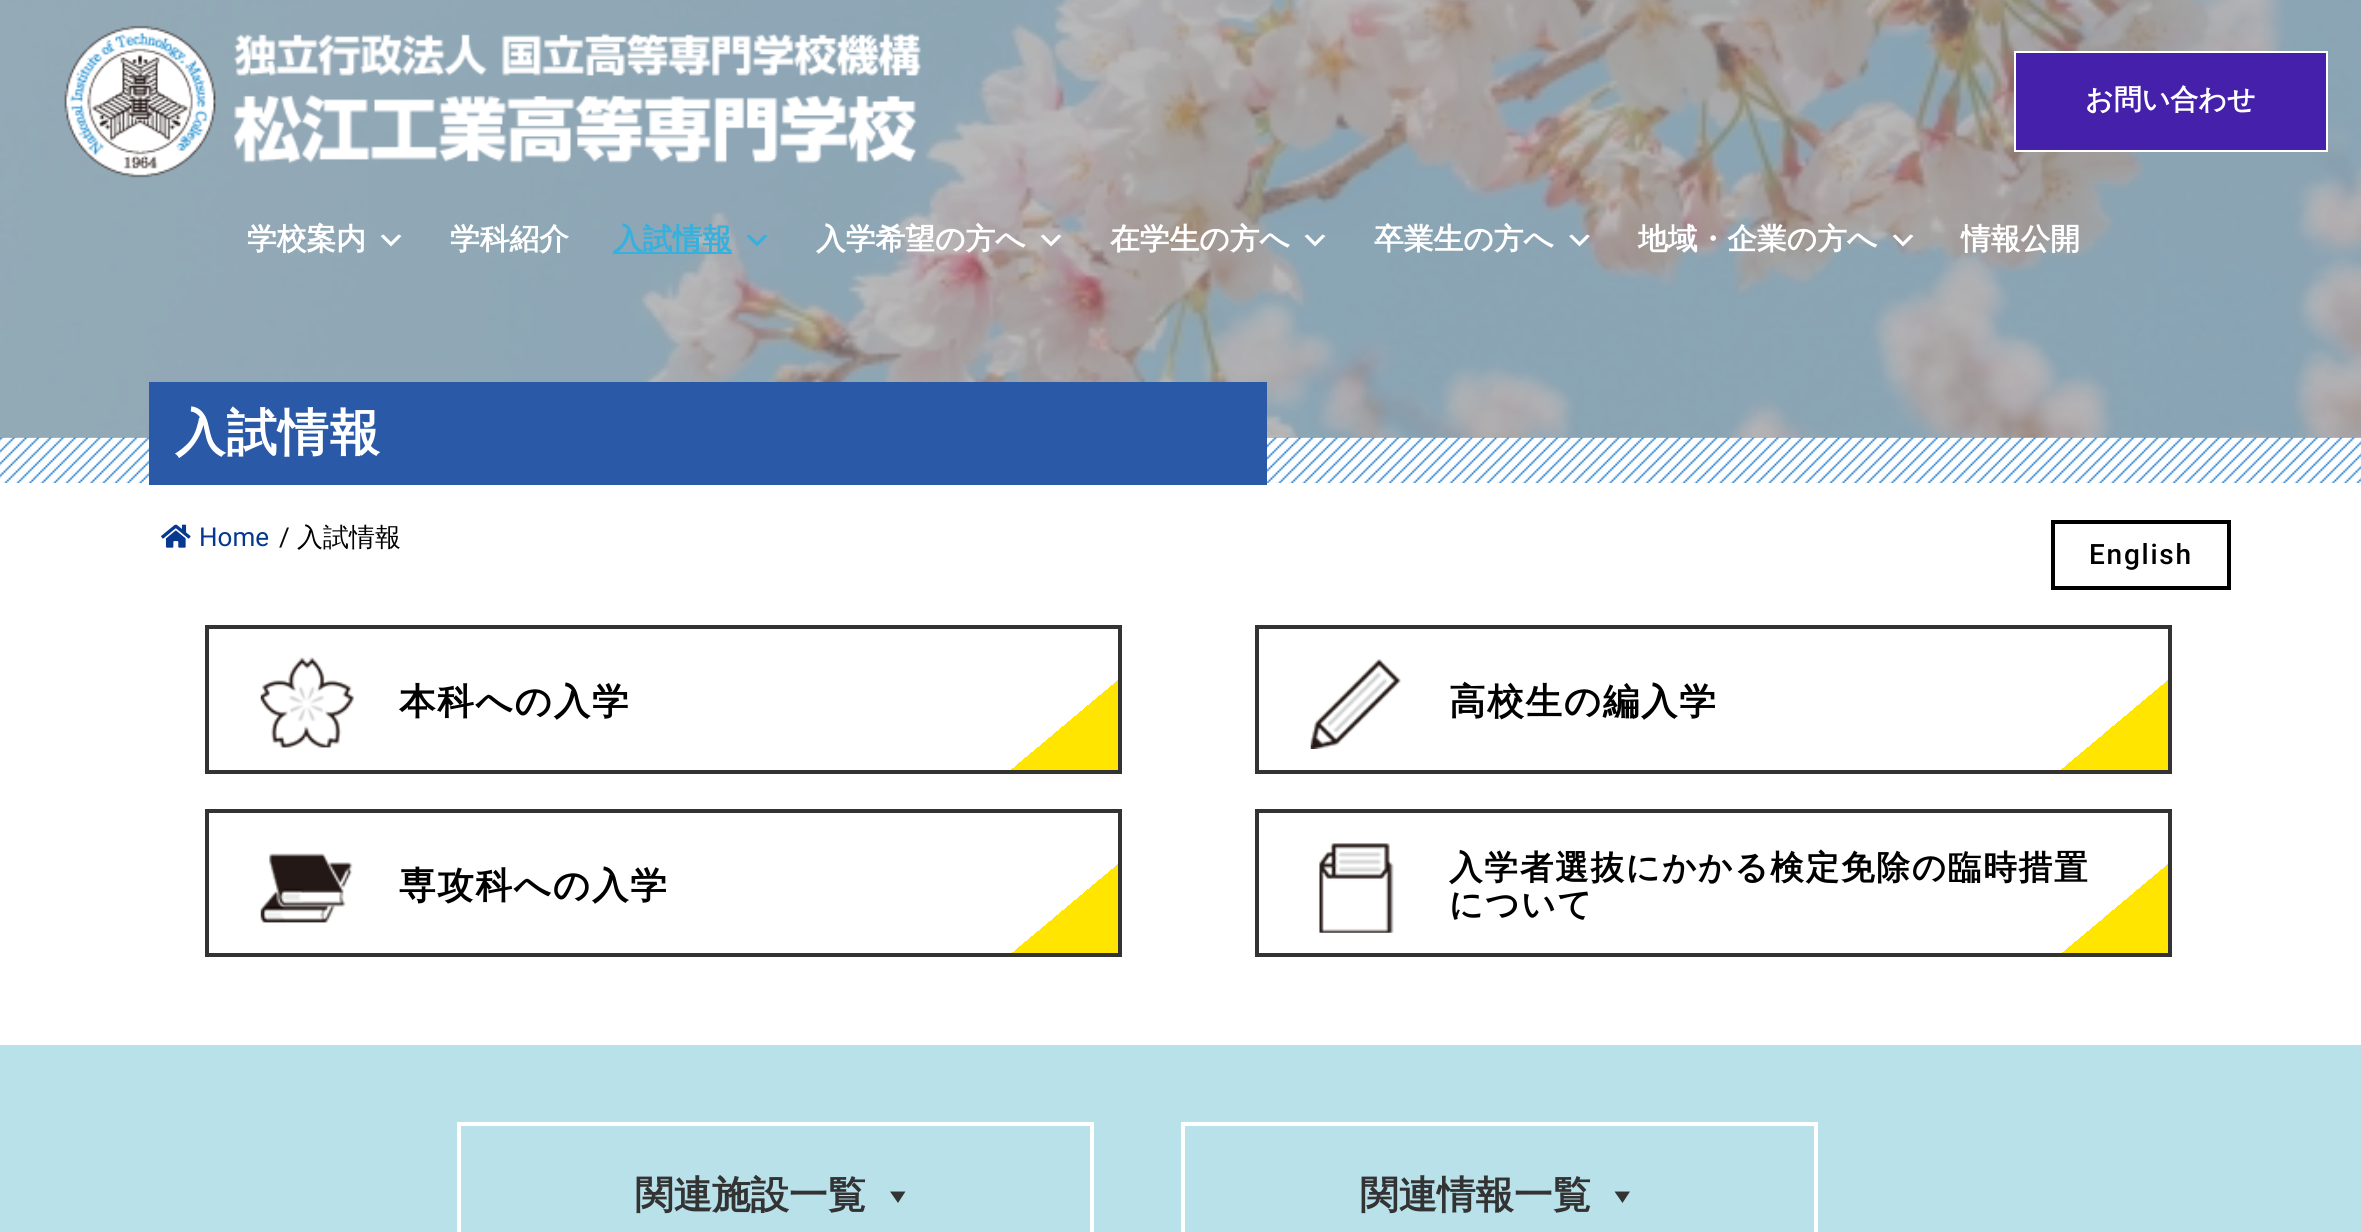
import math
import cairo

surface = cairo.ImageSurface(cairo.FORMAT_RGB24, 2361, 1232)
ctx = cairo.Context(surface)
options = cairo.FontOptions()
options.set_hint_metrics(cairo.HINT_METRICS_OFF)
options.set_hint_style(cairo.HINT_STYLE_NONE)
ctx.set_font_options(options)
ctx.set_miter_limit(4)


def set_color(code):
    ctx.set_source_rgb(*(v / 255 for v in bytes.fromhex(code[-6:])))


def draw_text(x, y, s, family, size, color, bold=False, italic=False):
    ctx.select_font_face(family, cairo.FONT_SLANT_ITALIC if italic else cairo.FONT_SLANT_NORMAL, cairo.FONT_WEIGHT_BOLD if bold else cairo.FONT_WEIGHT_NORMAL)
    ctx.set_font_size(size)
    set_color(color)
    ctx.move_to(x, y)
    ctx.show_text(s)


def draw_spaced(x, y, s, letter, word):
    ctx.move_to(x, y)
    for ch in s:
        ctx.show_text(ch)
        ctx.rel_move_to(letter + word * (ch == ' '), 0)


def fill_rect(x, y, w, h, color):
    set_color(color)
    ctx.rectangle(x, y, w, h)
    ctx.fill()


def draw_image(path, x, y, w, h):
    ctx.save()
    ctx.set_source_surface(cairo.ImageSurface.create_from_png(path), x, y)
    ctx.rectangle(x, y, w, h)
    ctx.fill()
    ctx.restore()


set_color("#ffffff")
ctx.paint()
fill_rect(0, 437, 2361, 1, "#bfbfbf")
draw_image("assets/img2.png", 0, 0, 2361, 438)
draw_image("assets/img1.png", 64, 25, 857, 153)
set_color("#4520aa")
ctx.rectangle(2015, 52, 312, 99)
ctx.fill_preserve()
set_color("#ffffff")
ctx.stroke()
draw_text(2085, 109, "お問い合わせ", "WenQuanYi Zen Hei", 28, "#ffffff", bold=True)
draw_text(247, 249, "学校案内", "WenQuanYi Zen Hei", 29.75, "#ffffff", bold=True)
ctx.new_path()
ctx.move_to(383.5, 234.5)
ctx.line_to(391, 242)
ctx.line_to(398.5, 234.5)
ctx.line_to(401.5, 236)
ctx.line_to(391, 246.5)
ctx.line_to(380.5, 236)
ctx.close_path()
ctx.fill()
draw_text(450, 249, "学科紹介", "WenQuanYi Zen Hei", 29.75, "#ffffff", bold=True)
fill_rect(613, 252, 119, 2, "#36b0dd")
draw_text(613, 249, "入試情報", "WenQuanYi Zen Hei", 29.75, "#36b0dd", bold=True)
ctx.new_path()
ctx.move_to(749.5, 234.5)
ctx.line_to(757, 242)
ctx.line_to(764.5, 234.5)
ctx.line_to(767.5, 236)
ctx.line_to(757, 246.5)
ctx.line_to(746.5, 236)
ctx.close_path()
ctx.fill()
draw_text(816, 249, "入学希望の方へ", "WenQuanYi Zen Hei", 29.75, "#ffffff", bold=True)
ctx.new_path()
ctx.move_to(1043.5, 234.5)
ctx.line_to(1051, 242)
ctx.line_to(1058.5, 234.5)
ctx.line_to(1061.5, 236)
ctx.line_to(1051, 246.5)
ctx.line_to(1040.5, 236)
ctx.close_path()
ctx.fill()
draw_text(1110, 249, "在学生の方へ", "WenQuanYi Zen Hei", 29.75, "#ffffff", bold=True)
ctx.new_path()
ctx.move_to(1307.5, 234.5)
ctx.line_to(1315, 242)
ctx.line_to(1322.5, 234.5)
ctx.line_to(1325.5, 236)
ctx.line_to(1315, 246.5)
ctx.line_to(1304.5, 236)
ctx.close_path()
ctx.fill()
draw_text(1374, 249, "卒業生の方へ", "WenQuanYi Zen Hei", 29.75, "#ffffff", bold=True)
ctx.new_path()
ctx.move_to(1572, 234.5)
ctx.line_to(1579.5, 242)
ctx.line_to(1587, 234.5)
ctx.line_to(1590, 236)
ctx.line_to(1579.5, 246.5)
ctx.line_to(1569, 236)
ctx.close_path()
ctx.fill()
draw_text(1638, 249, "地域・企業の方へ", "WenQuanYi Zen Hei", 29.75, "#ffffff", bold=True)
ctx.new_path()
ctx.move_to(1895.5, 234.5)
ctx.line_to(1903, 242)
ctx.line_to(1910.5, 234.5)
ctx.line_to(1913.5, 236)
ctx.line_to(1903, 246.5)
ctx.line_to(1892.5, 236)
ctx.close_path()
ctx.fill()
draw_text(1961, 249, "情報公開", "WenQuanYi Zen Hei", 29.75, "#ffffff", bold=True)
draw_image("assets/img3.png", 0, 437, 2361, 46)
fill_rect(149, 382, 1118, 103, "#2a59a7")
ctx.set_font_size(50.5)
set_color("#ffffff")
draw_spaced(175, 450, "入試情報", 1, 0)
draw_image("assets/img4.png", 161, 524, 30, 24)
draw_text(199, 546, "Home", "Roboto", 26, "#063890")
draw_text(279, 546, "/", "Roboto", 26, "#0a0a0a")
draw_text(297, 546, "入試情報", "WenQuanYi Zen Hei Medium", 26, "#000000")
ctx.rectangle(2053, 522, 176, 66)
ctx.set_line_width(4)
ctx.stroke()
ctx.select_font_face("Roboto Medium")
ctx.set_font_size(28)
draw_spaced(2089, 564, "English", 1.75, 0)
gradient = cairo.LinearGradient(440, 433, 886, 965)
gradient.add_color_stop_rgba(0.9, 1, 1, 1, 1)
gradient.add_color_stop_rgba(0.9, 1, 0.898, 0, 1)
ctx.set_source(gradient)
ctx.rectangle(1011, 680, 107, 90)
ctx.fill()
ctx.rectangle(207, 627, 913, 145)
set_color("#333333")
ctx.stroke()
draw_image("assets/img5.png", 260, 657, 94, 91)
ctx.select_font_face("WenQuanYi Zen Hei", cairo.FONT_SLANT_NORMAL, cairo.FONT_WEIGHT_BOLD)
ctx.set_font_size(36.5)
set_color("#000000")
draw_spaced(399, 714, "本科への入学", 1.75, 0)
gradient = cairo.LinearGradient(1490, 433, 1936, 965)
gradient.add_color_stop_rgba(0.9, 1, 1, 1, 1)
gradient.add_color_stop_rgba(0.9, 1, 0.898, 0, 1)
ctx.set_source(gradient)
ctx.rectangle(2061, 680, 107, 90)
ctx.fill()
ctx.rectangle(1257, 627, 913, 145)
set_color("#333333")
ctx.stroke()
draw_image("assets/img6.png", 1310, 659, 91, 90)
set_color("#000000")
draw_spaced(1449, 714, "高校生の編入学", 1.75, 0)
gradient = cairo.LinearGradient(440, 617, 886, 1149)
gradient.add_color_stop_rgba(0.9, 1, 1, 1, 1)
gradient.add_color_stop_rgba(0.9, 1, 0.898, 0, 1)
ctx.set_source(gradient)
ctx.rectangle(1012, 864, 106, 89)
ctx.fill()
ctx.rectangle(207, 811, 913, 144)
set_color("#333333")
ctx.stroke()
draw_image("assets/img7.png", 260, 853, 93, 70)
set_color("#000000")
draw_spaced(399, 898, "専攻科への入学", 1.75, 0)
gradient = cairo.LinearGradient(1490, 617, 1936, 1149)
gradient.add_color_stop_rgba(0.9, 1, 1, 1, 1)
gradient.add_color_stop_rgba(0.9, 1, 0.898, 0, 1)
ctx.set_source(gradient)
ctx.rectangle(2062, 864, 106, 89)
ctx.fill()
ctx.rectangle(1257, 811, 913, 144)
set_color("#333333")
ctx.stroke()
draw_image("assets/img8.png", 1319, 843, 75, 90)
ctx.set_font_size(33.6)
set_color("#000000")
draw_spaced(1449, 879, "入学者選抜にかかる検定免除の臨時措置", 1.75, 0)
draw_spaced(1449, 916, "について", 1.75, 0)
fill_rect(0, 1045, 2361, 187, "#b8e1ea")
ctx.rectangle(459, 1124, 633, 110)
set_color("#ffffff")
ctx.stroke()
draw_text(635, 1208, "関連施設一覧", "WenQuanYi Zen Hei", 38.5, "#333333", bold=True)
ctx.new_path()
ctx.move_to(905.5, 1191.5)
ctx.line_to(898, 1203)
ctx.line_to(890, 1191.5)
ctx.close_path()
ctx.fill()
ctx.rectangle(1183, 1124, 633, 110)
set_color("#ffffff")
ctx.stroke()
draw_text(1360, 1208, "関連情報一覧", "WenQuanYi Zen Hei", 38.5, "#333333", bold=True)
ctx.new_path()
ctx.move_to(1630, 1191.5)
ctx.line_to(1622.5, 1203)
ctx.line_to(1614.5, 1191.5)
ctx.close_path()
ctx.fill()
surface.write_to_png("output.png")
